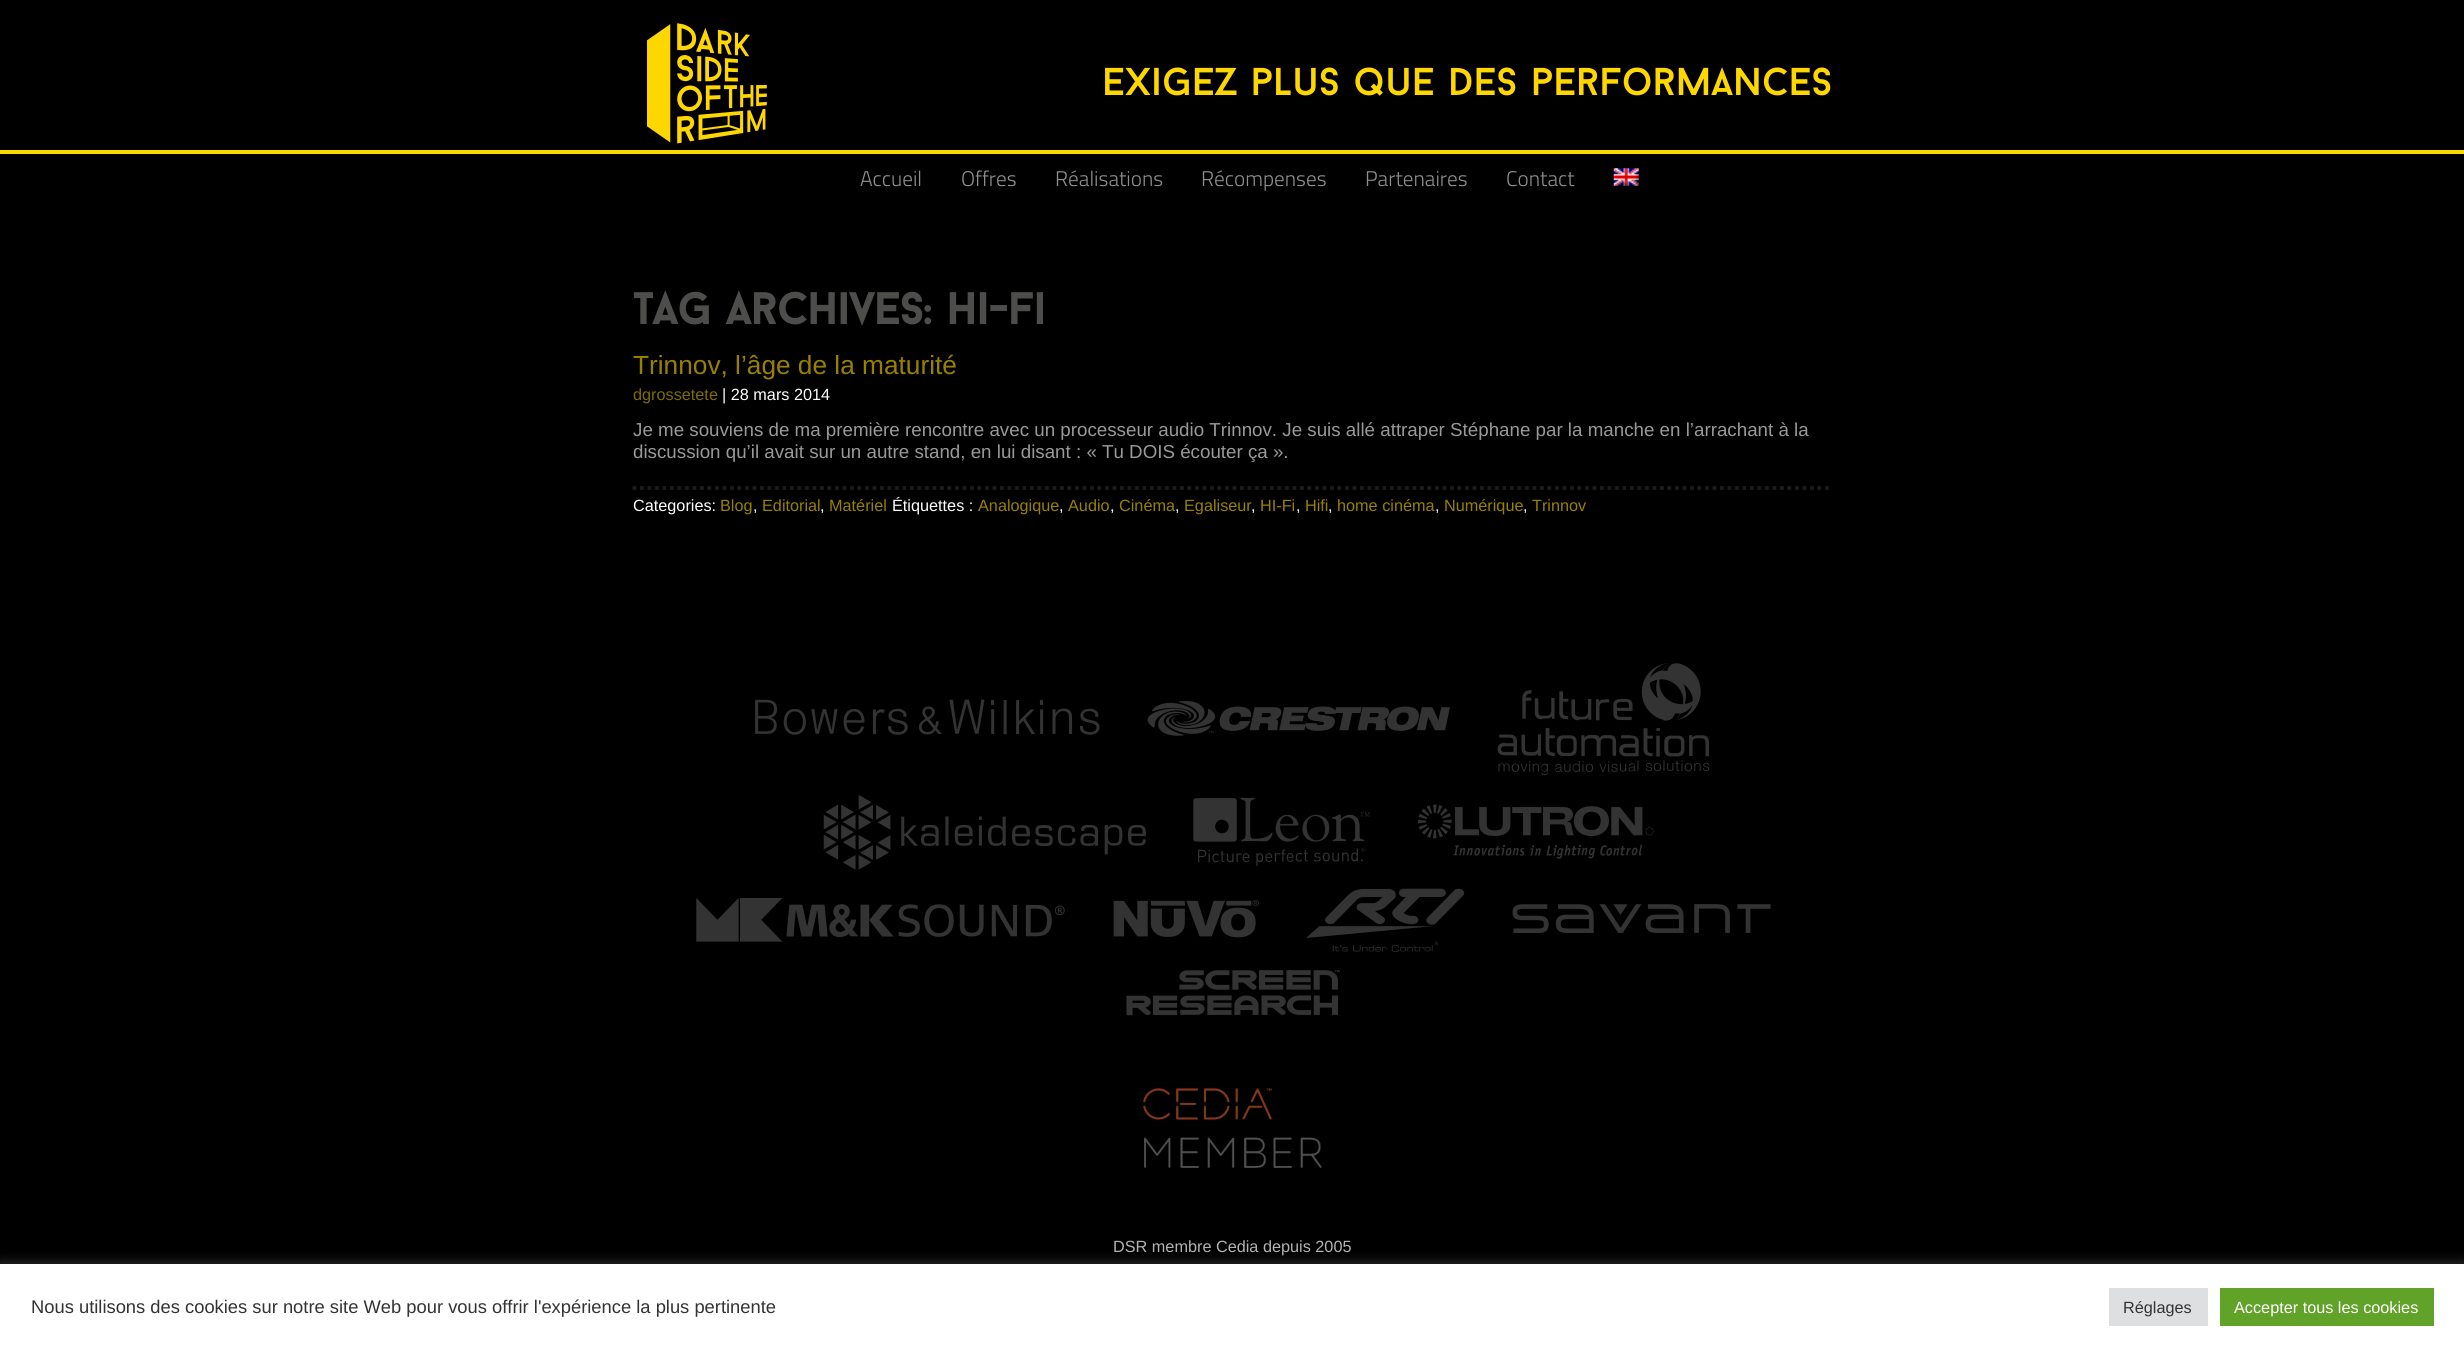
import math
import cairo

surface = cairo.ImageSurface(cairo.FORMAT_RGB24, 2464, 1350)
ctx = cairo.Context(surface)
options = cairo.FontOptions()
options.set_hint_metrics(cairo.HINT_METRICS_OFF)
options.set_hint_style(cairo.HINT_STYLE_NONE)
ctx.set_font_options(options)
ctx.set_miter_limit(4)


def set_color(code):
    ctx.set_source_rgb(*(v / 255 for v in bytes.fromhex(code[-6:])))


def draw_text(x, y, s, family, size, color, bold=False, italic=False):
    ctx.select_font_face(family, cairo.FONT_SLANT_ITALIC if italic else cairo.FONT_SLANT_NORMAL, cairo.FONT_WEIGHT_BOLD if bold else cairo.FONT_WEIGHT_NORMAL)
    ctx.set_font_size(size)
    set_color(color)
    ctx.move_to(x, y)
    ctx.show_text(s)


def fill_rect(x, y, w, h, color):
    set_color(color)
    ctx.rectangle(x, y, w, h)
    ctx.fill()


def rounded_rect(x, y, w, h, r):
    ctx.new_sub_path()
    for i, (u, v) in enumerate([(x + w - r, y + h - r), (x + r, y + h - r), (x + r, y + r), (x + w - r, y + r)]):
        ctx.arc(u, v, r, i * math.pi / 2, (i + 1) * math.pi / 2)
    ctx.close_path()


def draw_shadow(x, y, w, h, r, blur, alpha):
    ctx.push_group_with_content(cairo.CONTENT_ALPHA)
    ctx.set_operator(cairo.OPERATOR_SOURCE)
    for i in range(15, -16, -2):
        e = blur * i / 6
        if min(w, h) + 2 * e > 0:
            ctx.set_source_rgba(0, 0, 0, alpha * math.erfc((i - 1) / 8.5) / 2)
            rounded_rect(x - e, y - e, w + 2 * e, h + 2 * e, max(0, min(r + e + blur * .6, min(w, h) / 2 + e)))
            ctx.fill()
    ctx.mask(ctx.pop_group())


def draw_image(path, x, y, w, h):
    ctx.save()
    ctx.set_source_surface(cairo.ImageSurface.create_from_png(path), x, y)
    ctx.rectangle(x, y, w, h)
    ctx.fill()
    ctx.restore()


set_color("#000000")
ctx.paint()
fill_rect(0, 150, 2464, 4, "#ffd700")
draw_image("assets/img1.png", 647, 23, 120, 121)
draw_text(1102, 95, "Exigez plus que des performances", "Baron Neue", 38.75, "#ffd700")
draw_text(860, 186, "Accueil", "Titillium Web Light", 21.25, "#8f8f8f")
draw_text(961, 186, "Offres", "Titillium Web Light", 21.25, "#8f8f8f")
draw_text(1055, 186, "Réalisations", "Titillium Web Light", 21.25, "#8f8f8f")
draw_text(1201, 186, "Récompenses", "Titillium Web Light", 21.25, "#8f8f8f")
draw_text(1365, 186, "Partenaires", "Titillium Web Light", 21.25, "#8f8f8f")
draw_text(1506, 186, "Contact", "Titillium Web Light", 21.25, "#8f8f8f")
draw_image("assets/img2.png", 1613, 168, 26, 18)
draw_text(633, 324, "tag archives: hi-fi", "Baron Neue", 43.75, "#4d4d4c", bold=True)
draw_text(633, 374, "Trinnov, l’âge de la maturité", "Liberation Sans", 26.25, "#998100")
draw_text(633, 400, "dgrossetete", "Liberation Sans", 16.25, "#806c00")
draw_text(722, 400, "| 28 mars 2014", "Liberation Sans", 16.25, "#ffffff")
draw_text(633, 436, "Je me souviens de ma première rencontre avec un processeur audio Trinnov. Je suis allé attraper Stéphane par la manche en l’arrachant à la", "Liberation Sans", 18.75, "#999999")
draw_text(633, 458, "discussion qu’il avait sur un autre stand, en lui disant : « Tu DOIS écouter ça ».", "Liberation Sans", 18.75, "#999999")
ctx.new_path()
ctx.move_to(632.5, 488)
ctx.line_to(1832.5, 488)
set_color("#1c1c1c")
ctx.set_line_width(3.8)
ctx.set_dash([3.75, 3.75])
ctx.stroke()
draw_text(633, 511, "Categories:", "Liberation Sans", 16.25, "#ffffff")
draw_text(720, 511, "Blog", "Liberation Sans", 16.25, "#998100")
draw_text(753, 511, ",", "Liberation Sans", 16.25, "#ffffff")
draw_text(762, 511, "Editorial", "Liberation Sans", 16.25, "#998100")
draw_text(820, 511, ",", "Liberation Sans", 16.25, "#ffffff")
draw_text(829, 511, "Matériel", "Liberation Sans", 16.25, "#998100")
draw_text(892, 511, "Étiquettes :", "Liberation Sans", 16.25, "#ffffff")
draw_text(978, 511, "Analogique", "Liberation Sans", 16.25, "#998100")
draw_text(1059, 511, ",", "Liberation Sans", 16.25, "#ffffff")
draw_text(1068, 511, "Audio", "Liberation Sans", 16.25, "#998100")
draw_text(1110, 511, ",", "Liberation Sans", 16.25, "#ffffff")
draw_text(1119, 511, "Cinéma", "Liberation Sans", 16.25, "#998100")
draw_text(1175, 511, ",", "Liberation Sans", 16.25, "#ffffff")
draw_text(1184, 511, "Egaliseur", "Liberation Sans", 16.25, "#998100")
draw_text(1251, 511, ",", "Liberation Sans", 16.25, "#ffffff")
draw_text(1260, 511, "HI-Fi", "Liberation Sans", 16.25, "#998100")
draw_text(1296, 511, ",", "Liberation Sans", 16.25, "#ffffff")
draw_text(1305, 511, "Hifi", "Liberation Sans", 16.25, "#998100")
draw_text(1328, 511, ",", "Liberation Sans", 16.25, "#ffffff")
draw_text(1337, 511, "home cinéma", "Liberation Sans", 16.25, "#998100")
draw_text(1435, 511, ",", "Liberation Sans", 16.25, "#ffffff")
draw_text(1444, 511, "Numérique", "Liberation Sans", 16.25, "#998100")
draw_text(1523, 511, ",", "Liberation Sans", 16.25, "#ffffff")
draw_text(1532, 511, "Trinnov", "Liberation Sans", 16.25, "#998100")
draw_image("assets/img3.png", 755, 699, 345, 36)
draw_image("assets/img4.png", 1147, 701, 303, 35)
draw_image("assets/img5.png", 1497, 663, 213, 113)
draw_image("assets/img6.png", 823, 795, 323, 75)
draw_image("assets/img7.png", 1193, 797, 177, 69)
draw_image("assets/img8.png", 1418, 804, 236, 55)
draw_image("assets/img9.png", 696, 898, 369, 44)
draw_image("assets/img10.png", 1113, 900, 146, 38)
draw_image("assets/img11.png", 1306, 888, 159, 64)
draw_image("assets/img12.png", 1512, 904, 259, 29)
draw_image("assets/img13.png", 1126, 970, 214, 46)
draw_image("assets/img14.png", 1143, 1088, 179, 80)
draw_text(1113, 1252, "DSR membre Cedia depuis 2005", "Liberation Sans", 16.25, "#b2b3b2")
set_color("#acabab")
draw_shadow(0, 1263, 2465, 86, 0, 6, 0.3)
fill_rect(0, 1264, 2464, 86, "#ffffff")
draw_text(31, 1313, "Nous utilisons des cookies sur notre site Web pour vous offrir l'expérience la plus pertinente", "Liberation Sans", 18.35, "#333333")
fill_rect(2109, 1288, 99, 38, "#dedfe0")
draw_text(2123, 1313, "Réglages", "Liberation Sans", 16.25, "#333333")
fill_rect(2220, 1288, 214, 38, "#61a229")
draw_text(2234, 1313, "Accepter tous les cookies", "Liberation Sans", 16.25, "#ffffff")
surface.write_to_png("output.png")
